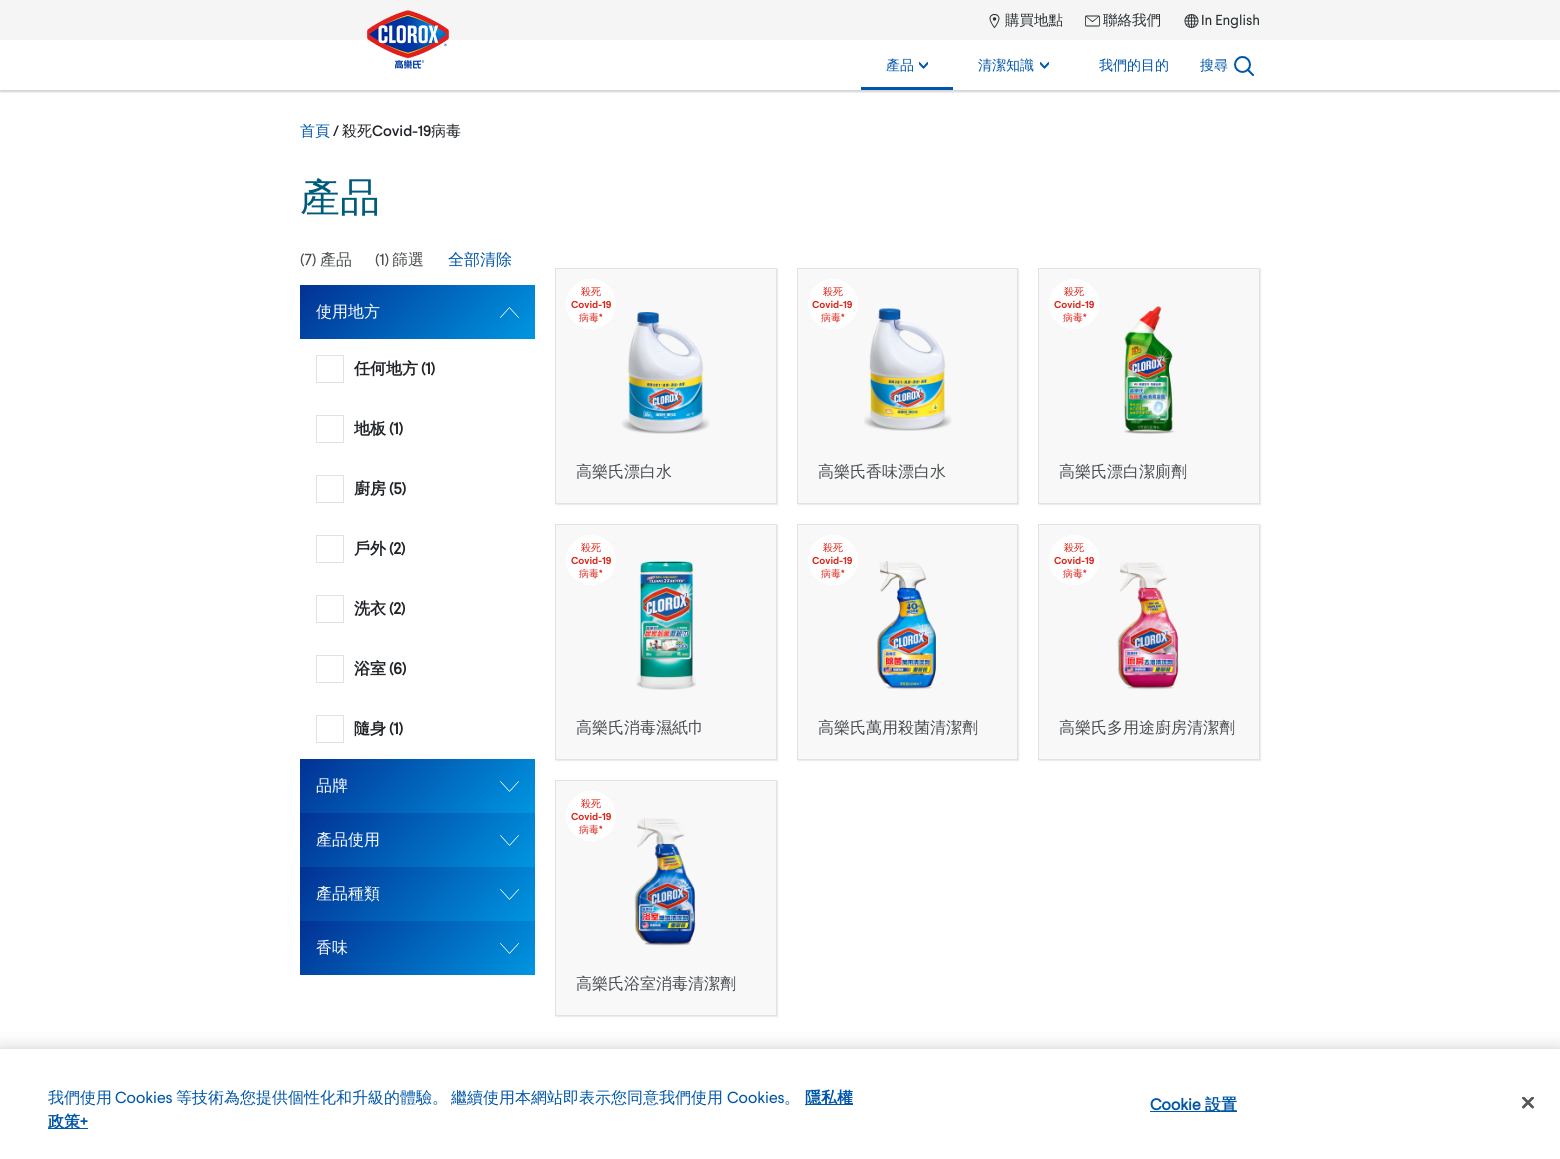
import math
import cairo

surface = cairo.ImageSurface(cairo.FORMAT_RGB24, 1560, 1159)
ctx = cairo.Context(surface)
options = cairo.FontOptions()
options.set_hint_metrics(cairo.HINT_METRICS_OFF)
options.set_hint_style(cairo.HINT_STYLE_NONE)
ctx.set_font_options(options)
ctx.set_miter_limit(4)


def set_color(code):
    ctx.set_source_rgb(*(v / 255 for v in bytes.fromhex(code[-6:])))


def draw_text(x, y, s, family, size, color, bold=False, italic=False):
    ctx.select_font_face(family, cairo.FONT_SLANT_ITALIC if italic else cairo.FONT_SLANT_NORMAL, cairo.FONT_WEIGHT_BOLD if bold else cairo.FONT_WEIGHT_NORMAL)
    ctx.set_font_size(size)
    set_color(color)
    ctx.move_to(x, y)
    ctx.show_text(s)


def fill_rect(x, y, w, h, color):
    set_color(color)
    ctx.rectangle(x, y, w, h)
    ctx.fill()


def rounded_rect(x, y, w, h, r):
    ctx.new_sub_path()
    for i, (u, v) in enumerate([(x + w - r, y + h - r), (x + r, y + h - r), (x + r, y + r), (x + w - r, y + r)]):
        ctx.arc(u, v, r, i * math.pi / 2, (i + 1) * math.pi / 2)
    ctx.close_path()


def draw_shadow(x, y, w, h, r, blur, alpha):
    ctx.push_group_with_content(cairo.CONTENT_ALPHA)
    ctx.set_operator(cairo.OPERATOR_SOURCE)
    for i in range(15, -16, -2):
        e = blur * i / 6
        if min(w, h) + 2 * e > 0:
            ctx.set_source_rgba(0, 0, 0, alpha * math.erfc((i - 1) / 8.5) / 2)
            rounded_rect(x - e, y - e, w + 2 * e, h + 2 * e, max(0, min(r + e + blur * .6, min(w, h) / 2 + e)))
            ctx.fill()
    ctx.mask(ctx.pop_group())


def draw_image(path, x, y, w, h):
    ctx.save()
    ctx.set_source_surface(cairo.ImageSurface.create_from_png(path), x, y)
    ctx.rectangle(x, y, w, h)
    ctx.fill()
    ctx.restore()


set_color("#ffffff")
ctx.paint()
ctx.save()
ctx.rectangle(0, 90, 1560, 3)
ctx.clip()
set_color("#130f30")
draw_shadow(0, 2, 1560, 90, 0, 1, 0.2)
ctx.restore()
fill_rect(0, 0, 1560, 40, "#f5f5f5")
draw_image("assets/img1.png", 367, 10, 82, 59)
draw_image("assets/img2.png", 989, 14, 11, 14)
draw_text(1005, 25, "購買地點", "WenQuanYi Zen Hei Medium", 14.5, "#293033")
draw_image("assets/img3.png", 1085, 15, 15, 12)
draw_text(1103, 25, "聯絡我們", "WenQuanYi Zen Hei Medium", 14.5, "#293033")
draw_image("assets/img4.png", 1184, 14, 15, 14)
draw_text(1201, 25, "In English", "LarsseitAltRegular", 14.5, "#293033")
draw_text(886, 70, "產品", "WenQuanYi Zen Hei Medium", 14, "#0056a8")
draw_image("assets/img5.png", 919, 62, 9, 7)
draw_text(978, 70, "清潔知識", "WenQuanYi Zen Hei Medium", 14, "#0056a8")
draw_image("assets/img5.png", 1040, 62, 9, 7)
draw_text(1099, 70, "我們的目的", "WenQuanYi Zen Hei Medium", 14, "#0056a8")
draw_text(1200, 70, "搜尋", "WenQuanYi Zen Hei Medium", 14, "#0056a8")
draw_image("assets/img6.png", 1234, 56, 20, 20)
fill_rect(861, 87, 92, 3, "#0056a8")
draw_text(300, 136, "首頁", "WenQuanYi Zen Hei Medium", 15, "#0056a8")
draw_text(333, 136, "/", "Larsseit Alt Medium", 15, "#212529")
draw_text(342, 136, "殺死", "WenQuanYi Zen Hei Medium", 15, "#212529")
draw_text(372, 136, "Covid-19", "Larsseit Alt Medium", 15, "#212529")
draw_text(431, 136, "病毒", "WenQuanYi Zen Hei Medium", 15, "#212529")
draw_text(300, 211, "產品", "WenQuanYi Zen Hei Medium", 40, "#005a7a")
draw_text(300, 265, "(7)", "LarsseitAltRegular", 16, "#4a4e50")
draw_text(320, 265, "產品", "WenQuanYi Zen Hei Medium", 16, "#4a4e50")
draw_text(375, 265, "(1)", "LarsseitAltRegular", 16, "#4a4e50")
draw_text(392, 265, "篩選", "WenQuanYi Zen Hei Medium", 16, "#4a4e50")
draw_text(448, 265, "全部清除", "WenQuanYi Zen Hei Medium", 16, "#0056a8")
gradient = cairo.LinearGradient(345, 240, 490, 384)
gradient.add_color_stop_rgba(0, 0.008, 0.192, 0.58, 1)
gradient.add_color_stop_rgba(1, 0, 0.588, 0.882, 1)
ctx.set_source(gradient)
ctx.rectangle(300, 285, 235, 54)
ctx.fill()
draw_text(316, 317, "使用地方", "WenQuanYi Zen Hei Medium", 16, "#ffffff")
draw_image("assets/img7.png", 500, 307, 19, 11)
ctx.rectangle(316.5, 355.5, 27, 27)
set_color("#e2e2e2")
ctx.set_line_width(1)
ctx.stroke()
draw_text(354, 374, "任何地方", "WenQuanYi Zen Hei", 16, "#212529", bold=True)
draw_text(421, 374, "(1)", "LarsseitAltRegular", 16, "#212529", bold=True)
ctx.rectangle(316.5, 415.5, 27, 27)
set_color("#e2e2e2")
ctx.stroke()
draw_text(354, 434, "地板", "WenQuanYi Zen Hei", 16, "#212529", bold=True)
draw_text(389, 434, "(1)", "LarsseitAltRegular", 16, "#212529", bold=True)
ctx.rectangle(316.5, 475.5, 27, 27)
set_color("#e2e2e2")
ctx.stroke()
draw_text(354, 494, "廚房", "WenQuanYi Zen Hei", 16, "#212529", bold=True)
draw_text(389, 494, "(5)", "LarsseitAltRegular", 16, "#212529", bold=True)
ctx.rectangle(316.5, 535.5, 27, 27)
set_color("#e2e2e2")
ctx.stroke()
draw_text(354, 554, "戶外", "WenQuanYi Zen Hei", 16, "#212529", bold=True)
draw_text(389, 554, "(2)", "LarsseitAltRegular", 16, "#212529", bold=True)
ctx.rectangle(316.5, 595.5, 27, 27)
set_color("#e2e2e2")
ctx.stroke()
draw_text(354, 614, "洗衣", "WenQuanYi Zen Hei", 16, "#212529", bold=True)
draw_text(389, 614, "(2)", "LarsseitAltRegular", 16, "#212529", bold=True)
ctx.rectangle(316.5, 655.5, 27, 27)
set_color("#e2e2e2")
ctx.stroke()
draw_text(354, 674, "浴室", "WenQuanYi Zen Hei", 16, "#212529", bold=True)
draw_text(389, 674, "(6)", "LarsseitAltRegular", 16, "#212529", bold=True)
ctx.rectangle(316.5, 715.5, 27, 27)
set_color("#e2e2e2")
ctx.stroke()
draw_text(354, 734, "隨身", "WenQuanYi Zen Hei", 16, "#212529", bold=True)
draw_text(389, 734, "(1)", "LarsseitAltRegular", 16, "#212529", bold=True)
gradient = cairo.LinearGradient(345, 714, 490, 858)
gradient.add_color_stop_rgba(0, 0.008, 0.192, 0.58, 1)
gradient.add_color_stop_rgba(1, 0, 0.588, 0.882, 1)
ctx.set_source(gradient)
ctx.rectangle(300, 759, 235, 54)
ctx.fill()
draw_text(316, 791, "品牌", "WenQuanYi Zen Hei Medium", 16, "#ffffff")
draw_image("assets/img8.png", 500, 781, 19, 11)
gradient = cairo.LinearGradient(345, 768, 490, 912)
gradient.add_color_stop_rgba(0, 0.008, 0.192, 0.58, 1)
gradient.add_color_stop_rgba(1, 0, 0.588, 0.882, 1)
ctx.set_source(gradient)
ctx.rectangle(300, 813, 235, 54)
ctx.fill()
draw_text(316, 845, "產品使用", "WenQuanYi Zen Hei Medium", 16, "#ffffff")
draw_image("assets/img8.png", 500, 835, 19, 11)
gradient = cairo.LinearGradient(345, 822, 490, 966)
gradient.add_color_stop_rgba(0, 0.008, 0.192, 0.58, 1)
gradient.add_color_stop_rgba(1, 0, 0.588, 0.882, 1)
ctx.set_source(gradient)
ctx.rectangle(300, 867, 235, 54)
ctx.fill()
draw_text(316, 899, "產品種類", "WenQuanYi Zen Hei Medium", 16, "#ffffff")
draw_image("assets/img8.png", 500, 889, 19, 11)
gradient = cairo.LinearGradient(345, 876, 490, 1020)
gradient.add_color_stop_rgba(0, 0.008, 0.192, 0.58, 1)
gradient.add_color_stop_rgba(1, 0, 0.588, 0.882, 1)
ctx.set_source(gradient)
ctx.rectangle(300, 921, 235, 54)
ctx.fill()
draw_text(316, 953, "香味", "WenQuanYi Zen Hei Medium", 16, "#ffffff")
draw_image("assets/img8.png", 500, 943, 19, 11)
set_color("#e2e2e2")
draw_shadow(556, 269, 222, 236, 0, 0.5, 0.7)
set_color("#f8f8f9")
ctx.rectangle(555.5, 268.5, 221, 235)
ctx.fill_preserve()
set_color("#e2e2e2")
ctx.stroke()
set_color("#ffffff")
ctx.arc(591, 304, 25, 0, 2 * math.pi)
ctx.fill()
draw_text(581, 295, "殺死", "WenQuanYi Zen Hei Medium", 10, "#da291c")
draw_text(571, 308, "Covid-19", "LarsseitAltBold", 10, "#da291c", bold=True)
draw_text(579, 321, "病毒", "WenQuanYi Zen Hei Medium", 10, "#da291c")
draw_text(599, 321, "*", "LarsseitAltBold", 10, "#da291c", bold=True)
draw_image("assets/img9.png", 621, 312, 89, 122)
draw_text(576, 477, "高樂氏漂白水", "WenQuanYi Zen Hei Medium", 16, "#4a4e50")
set_color("#e2e2e2")
draw_shadow(798, 269, 221, 236, 0, 0.5, 0.7)
set_color("#f8f8f9")
ctx.rectangle(797.5, 268.5, 220, 235)
ctx.fill_preserve()
set_color("#e2e2e2")
ctx.stroke()
set_color("#ffffff")
ctx.arc(833, 304, 25, 0, 2 * math.pi)
ctx.fill()
draw_text(823, 295, "殺死", "WenQuanYi Zen Hei Medium", 10, "#da291c")
draw_text(812, 308, "Covid-19", "LarsseitAltBold", 10, "#da291c", bold=True)
draw_text(821, 321, "病毒", "WenQuanYi Zen Hei Medium", 10, "#da291c")
draw_text(841, 321, "*", "LarsseitAltBold", 10, "#da291c", bold=True)
draw_image("assets/img10.png", 864, 308, 88, 123)
draw_text(818, 477, "高樂氏香味漂白水", "WenQuanYi Zen Hei Medium", 16, "#4a4e50")
set_color("#e2e2e2")
draw_shadow(1039, 269, 222, 236, 0, 0.5, 0.7)
set_color("#f8f8f9")
ctx.rectangle(1038.5, 268.5, 221, 235)
ctx.fill_preserve()
set_color("#e2e2e2")
ctx.stroke()
set_color("#ffffff")
ctx.arc(1074, 304, 25, 0, 2 * math.pi)
ctx.fill()
draw_text(1064, 295, "殺死", "WenQuanYi Zen Hei Medium", 10, "#da291c")
draw_text(1054, 308, "Covid-19", "LarsseitAltBold", 10, "#da291c", bold=True)
draw_text(1063, 321, "病毒", "WenQuanYi Zen Hei Medium", 10, "#da291c")
draw_text(1083, 321, "*", "LarsseitAltBold", 10, "#da291c", bold=True)
draw_image("assets/img11.png", 1123, 306, 52, 128)
draw_text(1059, 477, "高樂氏漂白潔廁劑", "WenQuanYi Zen Hei Medium", 16, "#4a4e50")
set_color("#e2e2e2")
draw_shadow(556, 525, 222, 236, 0, 0.5, 0.7)
set_color("#f8f8f9")
ctx.rectangle(555.5, 524.5, 221, 235)
ctx.fill_preserve()
set_color("#e2e2e2")
ctx.stroke()
set_color("#ffffff")
ctx.arc(591, 560, 25, 0, 2 * math.pi)
ctx.fill()
draw_text(581, 551, "殺死", "WenQuanYi Zen Hei Medium", 10, "#da291c")
draw_text(571, 564, "Covid-19", "LarsseitAltBold", 10, "#da291c", bold=True)
draw_text(579, 577, "病毒", "WenQuanYi Zen Hei Medium", 10, "#da291c")
draw_text(599, 577, "*", "LarsseitAltBold", 10, "#da291c", bold=True)
draw_image("assets/img12.png", 636, 561, 60, 129)
draw_text(576, 733, "高樂氏消毒濕紙巾", "WenQuanYi Zen Hei Medium", 16, "#4a4e50")
set_color("#e2e2e2")
draw_shadow(798, 525, 221, 236, 0, 0.5, 0.7)
set_color("#f8f8f9")
ctx.rectangle(797.5, 524.5, 220, 235)
ctx.fill_preserve()
set_color("#e2e2e2")
ctx.stroke()
set_color("#ffffff")
ctx.arc(833, 560, 25, 0, 2 * math.pi)
ctx.fill()
draw_text(823, 551, "殺死", "WenQuanYi Zen Hei Medium", 10, "#da291c")
draw_text(812, 564, "Covid-19", "LarsseitAltBold", 10, "#da291c", bold=True)
draw_text(821, 577, "病毒", "WenQuanYi Zen Hei Medium", 10, "#da291c")
draw_text(841, 577, "*", "LarsseitAltBold", 10, "#da291c", bold=True)
draw_image("assets/img13.png", 877, 561, 59, 129)
draw_text(818, 733, "高樂氏萬用殺菌清潔劑", "WenQuanYi Zen Hei Medium", 16, "#4a4e50")
set_color("#e2e2e2")
draw_shadow(1039, 525, 222, 236, 0, 0.5, 0.7)
set_color("#f8f8f9")
ctx.rectangle(1038.5, 524.5, 221, 235)
ctx.fill_preserve()
set_color("#e2e2e2")
ctx.stroke()
set_color("#ffffff")
ctx.arc(1074, 560, 25, 0, 2 * math.pi)
ctx.fill()
draw_text(1064, 551, "殺死", "WenQuanYi Zen Hei Medium", 10, "#da291c")
draw_text(1054, 564, "Covid-19", "LarsseitAltBold", 10, "#da291c", bold=True)
draw_text(1063, 577, "病毒", "WenQuanYi Zen Hei Medium", 10, "#da291c")
draw_text(1083, 577, "*", "LarsseitAltBold", 10, "#da291c", bold=True)
draw_image("assets/img14.png", 1117, 562, 62, 128)
draw_text(1059, 733, "高樂氏多用途廚房清潔劑", "WenQuanYi Zen Hei Medium", 16, "#4a4e50")
set_color("#e2e2e2")
draw_shadow(556, 781, 222, 236, 0, 0.5, 0.7)
set_color("#f8f8f9")
ctx.rectangle(555.5, 780.5, 221, 235)
ctx.fill_preserve()
set_color("#e2e2e2")
ctx.stroke()
set_color("#ffffff")
ctx.arc(591, 816, 25, 0, 2 * math.pi)
ctx.fill()
draw_text(581, 807, "殺死", "WenQuanYi Zen Hei Medium", 10, "#da291c")
draw_text(571, 820, "Covid-19", "LarsseitAltBold", 10, "#da291c", bold=True)
draw_text(579, 833, "病毒", "WenQuanYi Zen Hei Medium", 10, "#da291c")
draw_text(599, 833, "*", "LarsseitAltBold", 10, "#da291c", bold=True)
draw_image("assets/img15.png", 634, 817, 62, 129)
draw_text(576, 989, "高樂氏浴室消毒清潔劑", "WenQuanYi Zen Hei Medium", 16, "#4a4e50")
set_color("#000000")
draw_shadow(0, 1049, 1560, 110, 0, 9, 0.2)
fill_rect(0, 1049, 1560, 110, "#ffffff")
draw_text(48, 1103, "我們使用", "WenQuanYi Zen Hei Medium", 16, "#0056a8")
draw_text(115, 1103, "Cookies", "LarsseitAltRegular", 16, "#0056a8")
draw_text(176, 1103, "等技術為您提供個性化和升級的體驗。", "WenQuanYi Zen Hei Medium", 16, "#0056a8")
draw_text(451, 1103, "繼續使用本網站即表示您同意我們使用", "WenQuanYi Zen Hei Medium", 16, "#0056a8")
draw_text(727, 1103, "Cookies", "LarsseitAltRegular", 16, "#0056a8")
draw_text(784, 1103, "。", "WenQuanYi Zen Hei Medium", 16, "#0056a8")
fill_rect(805, 1104, 48, 1, "#0056a7")
draw_text(805, 1103, "隱私權", "WenQuanYi Zen Hei", 16, "#0056a8", bold=True)
fill_rect(48, 1128, 40, 1, "#0056a7")
draw_text(48, 1127, "政策", "WenQuanYi Zen Hei", 16, "#0056a8", bold=True)
draw_text(80, 1127, "+", "LarsseitAltRegular", 16, "#0056a8", bold=True)
draw_text(1150, 1110, "Cookie", "LarsseitAltRegular", 16, "#0056a8", bold=True)
fill_rect(1150, 1111, 87, 1, "#0056a7")
draw_text(1205, 1110, "設置", "WenQuanYi Zen Hei", 16, "#0056a8", bold=True)
draw_image("assets/img16.png", 1522, 1097, 12, 12)
surface.write_to_png("output.png")
